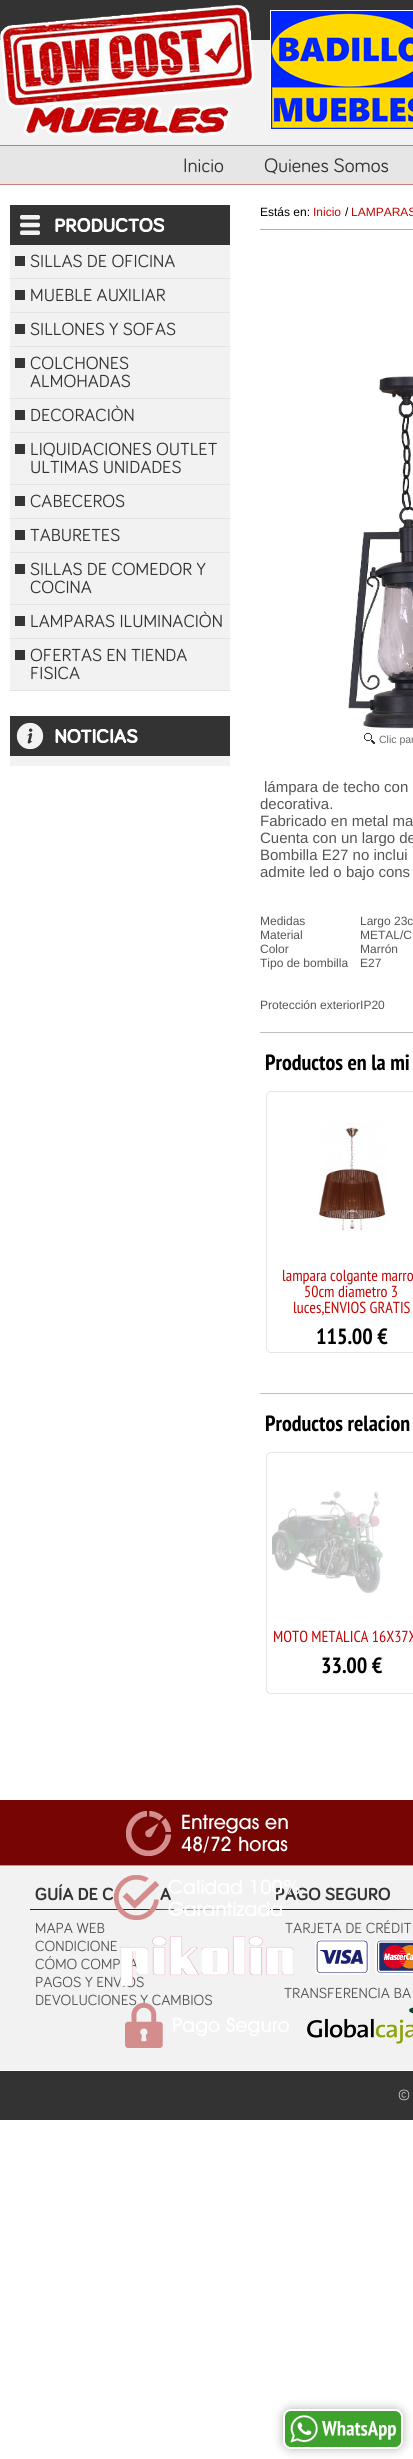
import math
import cairo

surface = cairo.ImageSurface(cairo.FORMAT_RGB24, 413, 2459)
ctx = cairo.Context(surface)
options = cairo.FontOptions()
options.set_hint_metrics(cairo.HINT_METRICS_OFF)
options.set_hint_style(cairo.HINT_STYLE_NONE)
ctx.set_font_options(options)
ctx.set_miter_limit(4)


def set_color(code):
    ctx.set_source_rgb(*(v / 255 for v in bytes.fromhex(code[-6:])))


def draw_text(x, y, s, family, size, color, bold=False, italic=False):
    ctx.select_font_face(family, cairo.FONT_SLANT_ITALIC if italic else cairo.FONT_SLANT_NORMAL, cairo.FONT_WEIGHT_BOLD if bold else cairo.FONT_WEIGHT_NORMAL)
    ctx.set_font_size(size)
    set_color(color)
    ctx.move_to(x, y)
    ctx.show_text(s)


def fill_rect(x, y, w, h, color):
    set_color(color)
    ctx.rectangle(x, y, w, h)
    ctx.fill()


def rounded_rect(x, y, w, h, r):
    ctx.new_sub_path()
    for i, (u, v) in enumerate([(x + w - r, y + h - r), (x + r, y + h - r), (x + r, y + r), (x + w - r, y + r)]):
        ctx.arc(u, v, r, i * math.pi / 2, (i + 1) * math.pi / 2)
    ctx.close_path()


def draw_shadow(x, y, w, h, r, blur, alpha):
    ctx.push_group_with_content(cairo.CONTENT_ALPHA)
    ctx.set_operator(cairo.OPERATOR_SOURCE)
    for i in range(15, -16, -2):
        e = blur * i / 6
        if min(w, h) + 2 * e > 0:
            ctx.set_source_rgba(0, 0, 0, alpha * math.erfc((i - 1) / 8.5) / 2)
            rounded_rect(x - e, y - e, w + 2 * e, h + 2 * e, max(0, min(r + e + blur * .6, min(w, h) / 2 + e)))
            ctx.fill()
    ctx.mask(ctx.pop_group())


def draw_image(path, x, y, w, h):
    ctx.save()
    ctx.set_source_surface(cairo.ImageSurface.create_from_png(path), x, y)
    ctx.rectangle(x, y, w, h)
    ctx.fill()
    ctx.restore()


set_color("#ffffff")
ctx.paint()
draw_image("assets/img1.png", 0, 0, 413, 185)
draw_image("assets/img2.png", 0, 5, 254, 131)
draw_image("assets/img3.png", 270, 10, 143, 120)
draw_text(183, 172, "Inicio", "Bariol", 20, "#333333")
draw_text(264, 172, "Quienes Somos", "Bariol", 20, "#333333")
draw_image("assets/img4.png", 10, 205, 220, 40)
fill_rect(10, 245, 220, 445, "#f2f2f2")
fill_rect(15, 256, 10, 10, "#363636")
fill_rect(10, 278, 220, 1, "#e4e4e4")
draw_text(30, 267, "SILLAS DE OFICINA", "Bariol", 18, "#333333")
fill_rect(15, 290, 10, 10, "#363636")
fill_rect(10, 312, 220, 1, "#e4e4e4")
draw_text(30, 301, "MUEBLE AUXILIAR", "Bariol", 18, "#333333")
fill_rect(15, 324, 10, 10, "#363636")
fill_rect(10, 346, 220, 1, "#e4e4e4")
draw_text(30, 335, "SILLONES Y SOFAS", "Bariol", 18, "#333333")
fill_rect(15, 358, 10, 10, "#363636")
fill_rect(10, 398, 220, 1, "#e4e4e4")
draw_text(30, 369, "COLCHONES", "Bariol", 18, "#333333")
draw_text(30, 387, "ALMOHADAS", "Bariol", 18, "#333333")
fill_rect(15, 410, 10, 10, "#363636")
fill_rect(10, 432, 220, 1, "#e4e4e4")
draw_text(30, 421, "DECORACIÒN", "Bariol", 18, "#333333")
fill_rect(15, 444, 10, 10, "#363636")
fill_rect(10, 484, 220, 1, "#e4e4e4")
draw_text(30, 455, "LIQUIDACIONES OUTLET", "Bariol", 18, "#333333")
draw_text(30, 473, "ULTIMAS UNIDADES", "Bariol", 18, "#333333")
fill_rect(15, 496, 10, 10, "#363636")
fill_rect(10, 518, 220, 1, "#e4e4e4")
draw_text(30, 507, "CABECEROS", "Bariol", 18, "#333333")
fill_rect(15, 530, 10, 10, "#363636")
fill_rect(10, 552, 220, 1, "#e4e4e4")
draw_text(30, 541, "TABURETES", "Bariol", 18, "#333333")
fill_rect(15, 564, 10, 10, "#363636")
fill_rect(10, 604, 220, 1, "#e4e4e4")
draw_text(30, 575, "SILLAS DE COMEDOR Y", "Bariol", 18, "#333333")
draw_text(30, 593, "COCINA", "Bariol", 18, "#333333")
fill_rect(15, 616, 10, 10, "#363636")
fill_rect(10, 638, 220, 1, "#e4e4e4")
draw_text(30, 627, "LAMPARAS ILUMINACIÒN", "Bariol", 18, "#333333")
fill_rect(15, 650, 10, 10, "#363636")
fill_rect(10, 690, 220, 1, "#e4e4e4")
draw_text(30, 661, "OFERTAS EN TIENDA", "Bariol", 18, "#333333")
draw_text(30, 679, "FISICA", "Bariol", 18, "#333333")
draw_image("assets/img5.png", 10, 716, 220, 40)
fill_rect(10, 756, 220, 10, "#f2f2f2")
fill_rect(260, 229, 153, 1, "#adadad")
draw_text(260, 216, "Estás en:", "Liberation Sans", 12, "#000000")
draw_text(313, 216, "Inicio", "Liberation Sans", 12, "#c00705")
draw_text(345, 216, "/", "Liberation Sans", 12, "#000000")
draw_text(351, 216, "LAMPARAS", "Liberation Sans", 12, "#c00705")
draw_image("assets/img6.png", 348, 376, 65, 353)
draw_image("assets/img7.png", 364, 733, 11, 11)
draw_text(379, 743, "Clic par", "Liberation Sans", 10.5, "#696969")
draw_text(264, 792, "lámpara de techo con", "Liberation Sans", 15, "#555555")
draw_text(260, 809, "decorativa.", "Liberation Sans", 15, "#555555")
draw_text(260, 826, "Fabricado en metal ma", "Liberation Sans", 15, "#555555")
draw_text(260, 843, "Cuenta con un largo de", "Liberation Sans", 15, "#555555")
draw_text(260, 860, "Bombilla E27 no inclui", "Liberation Sans", 15, "#555555")
draw_text(260, 877, "admite led o bajo cons", "Liberation Sans", 15, "#555555")
draw_text(260, 925, "Medidas", "Liberation Sans", 12, "#555555")
draw_text(360, 925, "Largo 23c", "Liberation Sans", 12, "#555555")
draw_text(260, 939, "Material", "Liberation Sans", 12, "#555555")
draw_text(360, 939, "METAL/C", "Liberation Sans", 12, "#555555")
draw_text(260, 953, "Color", "Liberation Sans", 12, "#555555")
draw_text(360, 953, "Marrón", "Liberation Sans", 12, "#555555")
draw_text(260, 967, "Tipo de bombilla", "Liberation Sans", 12, "#555555")
draw_text(360, 967, "E27", "Liberation Sans", 12, "#555555")
draw_text(260, 1009, "Protección exteriorIP20", "Liberation Sans", 12, "#555555")
fill_rect(260, 1032, 153, 1, "#bfbfbf")
draw_text(265, 1070, "Productos en la mi", "PT Sans Narrow", 22, "#000000", bold=True)
rounded_rect(266.5, 1091.5, 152, 261, 4.5)
set_color("#e6e6e6")
ctx.set_line_width(1)
ctx.stroke()
draw_image("assets/img8.png", 318, 1122, 70, 111)
draw_text(282, 1281, "lampara colgante marro", "PT Sans Narrow", 16, "#c00705")
draw_text(304, 1297, "50cm diametro 3", "PT Sans Narrow", 16, "#c00705")
draw_text(293, 1313, "luces,ENVIOS GRATIS", "PT Sans Narrow", 16, "#c00705")
draw_text(316, 1344, "115.00 €", "PT Sans Narrow", 22, "#000000", bold=True)
fill_rect(260, 1393, 153, 1, "#bfbfbf")
draw_text(265, 1431, "Productos relacion", "PT Sans Narrow", 22, "#000000", bold=True)
rounded_rect(266.5, 1452.5, 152, 241, 4.5)
set_color("#e6e6e6")
ctx.stroke()
draw_image("assets/img9.png", 272, 1491, 112, 102)
draw_text(273, 1642, "MOTO METALICA 16X37X", "PT Sans Narrow", 16, "#c00705")
draw_text(321, 1673, "33.00 €", "PT Sans Narrow", 22, "#000000", bold=True)
draw_image("assets/img10.png", 0, 1800, 413, 320)
draw_image("assets/img11.png", 126, 1811, 162, 45)
draw_image("assets/img15.png", 30, 1909, 207, 1)
draw_text(160, 1900, "A", "Bariol", 18, "#333333", bold=True)
draw_image("assets/img16.png", 270, 1909, 143, 1)
draw_text(275, 1900, "PAGO SEGURO", "Bariol", 18, "#333333", bold=True)
draw_text(285, 1933, "TARJETA DE CRÉDIT", "Bariol", 15, "#555555")
draw_image("assets/img12.png", 114, 1875, 186, 45)
draw_text(35, 1969, "CÓMO COMPRA", "Bariol", 15, "#555555")
draw_text(35, 1987, "PAGOS Y ENVÍOS", "Bariol", 15, "#555555")
draw_image("assets/img13.png", 120, 1936, 174, 50)
draw_text(35, 2005, "DEVOLUCIONES Y CAMBIOS", "Bariol", 15, "#555555")
draw_image("assets/img14.png", 125, 2003, 164, 45)
draw_text(35, 1900, "GUÍA DE C", "Bariol", 18, "#333333", bold=True)
draw_text(35, 1933, "MAPA WEB", "Bariol", 15, "#555555")
draw_text(35, 1951, "CONDICIONE", "Bariol", 15, "#555555")
draw_image("assets/img17.png", 315, 1939, 98, 36)
draw_text(284, 1998, "TRANSFERENCIA BA", "Bariol", 15, "#555555")
draw_image("assets/img18.png", 307, 2007, 106, 37)
draw_text(398, 2100, "©", "Bariol", 15, "#cccccc")
set_color("#000000")
draw_shadow(283, 2409, 120, 40, 8, 5, 0.3)
set_color("#40a22e")
rounded_rect(284, 2410, 118, 38, 7)
ctx.fill_preserve()
set_color("#ffffff")
ctx.set_line_width(2)
ctx.stroke()
draw_image("assets/img19.png", 290, 2415, 106, 28)
surface.write_to_png("output.png")
